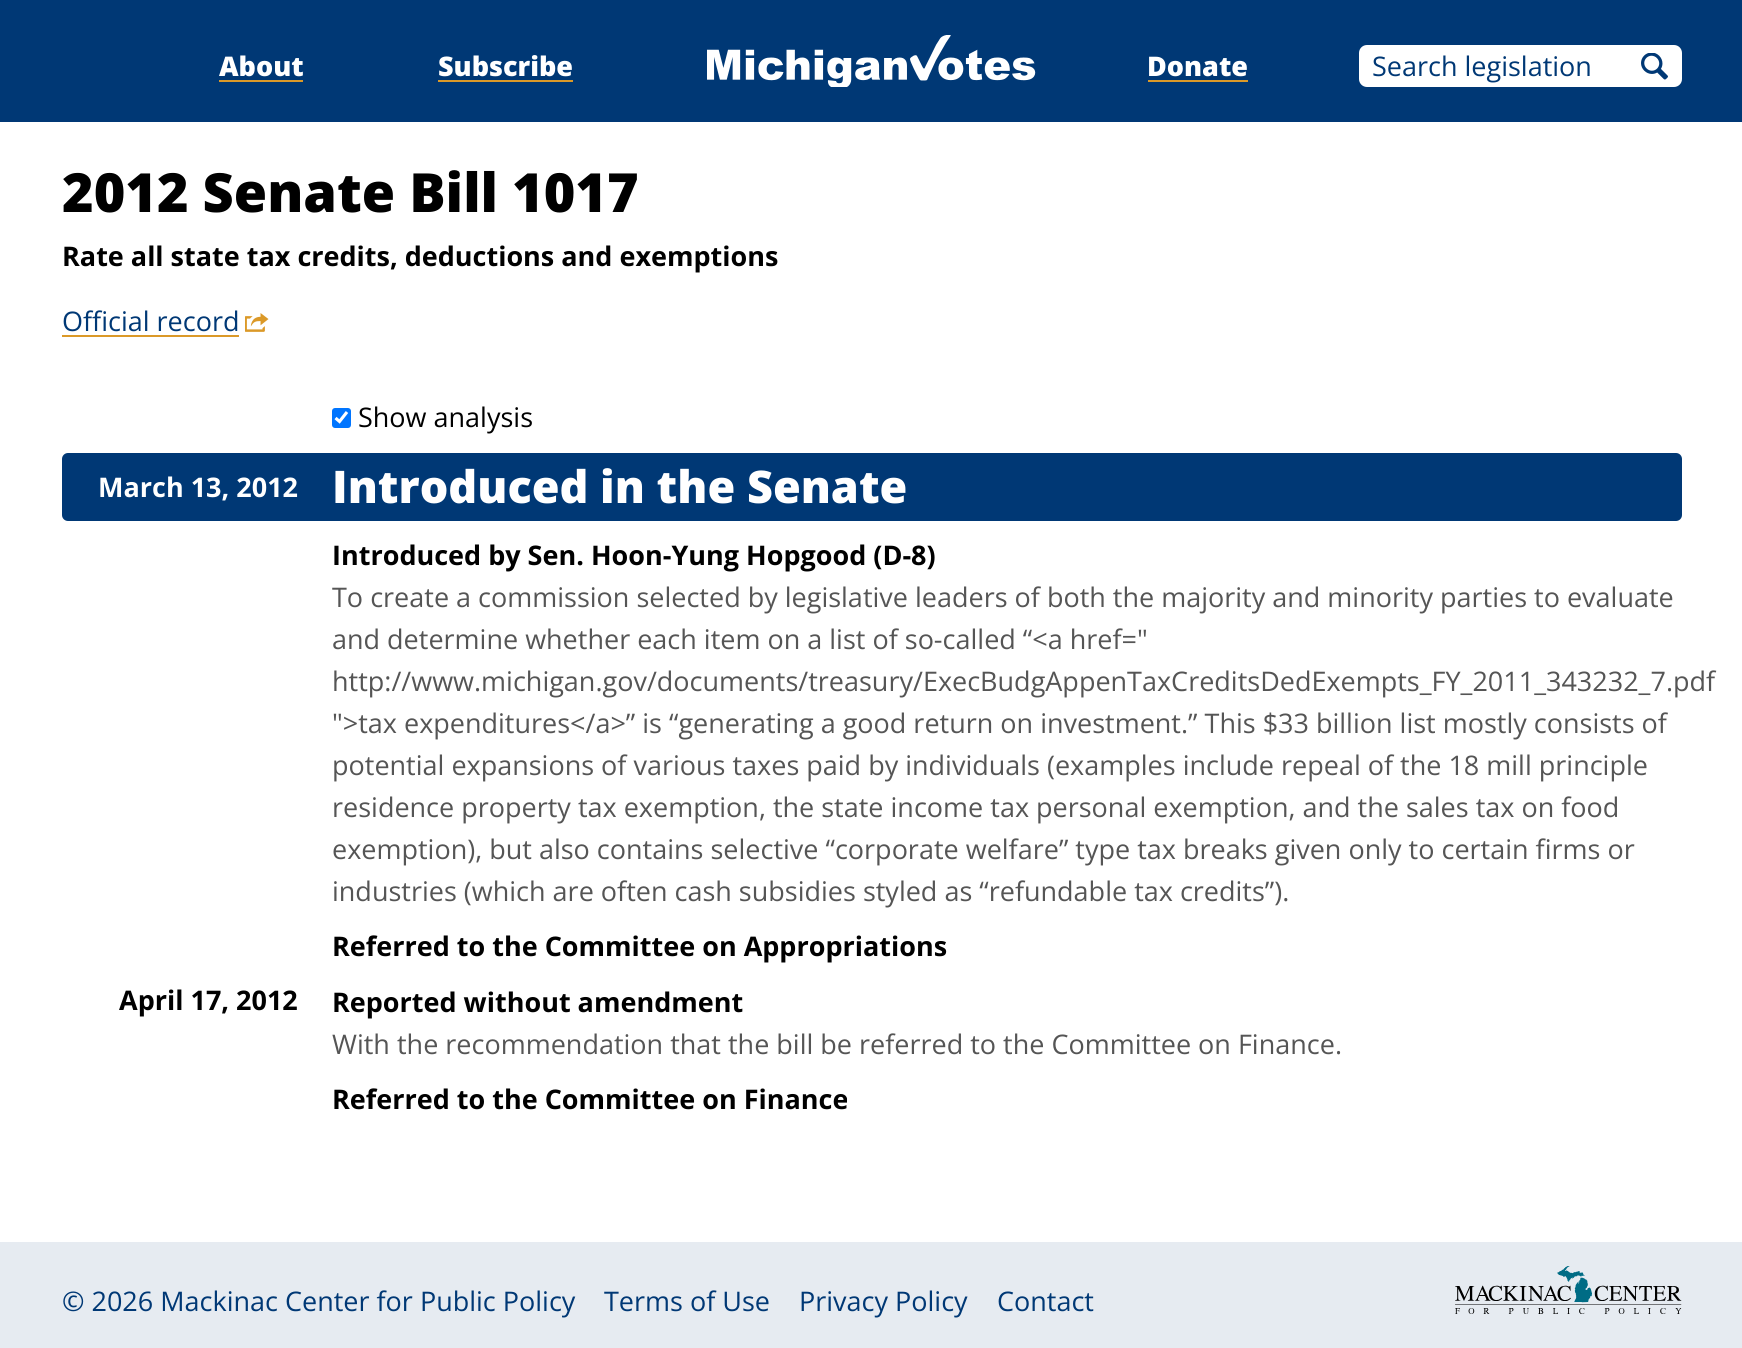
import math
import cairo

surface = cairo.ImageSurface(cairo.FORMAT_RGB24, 1742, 1348)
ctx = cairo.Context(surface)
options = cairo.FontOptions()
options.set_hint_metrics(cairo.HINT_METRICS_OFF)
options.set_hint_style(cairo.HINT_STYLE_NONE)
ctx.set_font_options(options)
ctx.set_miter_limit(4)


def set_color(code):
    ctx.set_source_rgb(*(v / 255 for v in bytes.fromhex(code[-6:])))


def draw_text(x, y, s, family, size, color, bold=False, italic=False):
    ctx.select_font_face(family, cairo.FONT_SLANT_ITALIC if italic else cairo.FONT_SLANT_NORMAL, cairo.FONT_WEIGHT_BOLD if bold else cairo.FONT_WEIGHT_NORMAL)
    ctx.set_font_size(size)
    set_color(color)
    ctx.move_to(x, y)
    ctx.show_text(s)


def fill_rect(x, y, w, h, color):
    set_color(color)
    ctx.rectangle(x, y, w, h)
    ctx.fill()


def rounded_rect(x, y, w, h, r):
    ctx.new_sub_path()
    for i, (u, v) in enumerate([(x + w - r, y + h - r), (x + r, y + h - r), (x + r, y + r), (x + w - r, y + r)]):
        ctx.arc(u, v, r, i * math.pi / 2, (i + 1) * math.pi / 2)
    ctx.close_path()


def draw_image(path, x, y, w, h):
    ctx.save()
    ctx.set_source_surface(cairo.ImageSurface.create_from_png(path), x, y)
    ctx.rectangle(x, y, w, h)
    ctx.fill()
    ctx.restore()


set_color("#ffffff")
ctx.paint()
fill_rect(0, 0, 1742, 122, "#003875")
draw_image("assets/img1.png", 707, 35, 329, 52)
draw_text(219, 76, "About", "Open Sans ExtraBold", 27, "#ffffff")
fill_rect(219, 80, 84, 2, "#db9928")
draw_text(438, 76, "Subscribe", "Open Sans ExtraBold", 27, "#ffffff")
fill_rect(438, 80, 135, 2, "#db9928")
draw_text(1147, 76, "Donate", "Open Sans ExtraBold", 27, "#ffffff")
fill_rect(1148, 80, 100, 2, "#db9928")
set_color("#ffffff")
rounded_rect(1359, 45, 323, 42, 8)
ctx.fill()
draw_text(1372, 76, "Search legislation", "Open Sans", 27, "#003875")
draw_image("assets/img2.png", 1641, 53, 27, 27)
draw_text(62, 212, "2012 Senate Bill 1017", "Open Sans ExtraBold", 54, "#000000")
draw_text(62, 266, "Rate all state tax credits, deductions and exemptions", "Open Sans", 27, "#000000", bold=True)
draw_text(62, 331, "Official record", "Open Sans", 27, "#003875")
fill_rect(62, 335, 177, 2, "#db9928")
draw_image("assets/img3.png", 245, 313, 24, 19)
set_color("#0075ff")
rounded_rect(332, 408, 19, 20, 3)
ctx.fill()
ctx.new_path()
ctx.move_to(335.5, 418)
ctx.line_to(339.5, 421.5)
ctx.line_to(347, 412)
set_color("#ffffff")
ctx.set_line_width(3.1)
ctx.stroke()
draw_text(358, 427, "Show analysis", "Open Sans", 27, "#000000")
set_color("#003875")
rounded_rect(62, 453, 1620, 68, 6)
ctx.fill()
draw_text(98, 497, "March 13, 2012", "Open Sans", 27, "#ffffff", bold=True)
draw_text(332, 503, "Introduced in the Senate", "Open Sans ExtraBold", 45, "#ffffff")
draw_text(332, 565, "Introduced by Sen. Hoon-Yung Hopgood (D-8)", "Open Sans", 27, "#000000", bold=True)
draw_text(332, 607, "To create a commission selected by legislative leaders of both the majority and minority parties to evaluate", "Open Sans", 27, "#555555")
draw_text(332, 649, "and determine whether each item on a list of so-called “<a href=\"", "Open Sans", 27, "#555555")
draw_text(332, 691, "http://www.michigan.gov/documents/treasury/ExecBudgAppenTaxCreditsDedExempts_FY_2011_343232_7.pdf", "Open Sans", 27, "#555555")
draw_text(332, 733, "\">tax expenditures</a>” is “generating a good return on investment.” This $33 billion list mostly consists of", "Open Sans", 27, "#555555")
draw_text(332, 775, "potential expansions of various taxes paid by individuals (examples include repeal of the 18 mill principle", "Open Sans", 27, "#555555")
draw_text(332, 817, "residence property tax exemption, the state income tax personal exemption, and the sales tax on food", "Open Sans", 27, "#555555")
draw_text(332, 859, "exemption), but also contains selective “corporate welfare” type tax breaks given only to certain firms or", "Open Sans", 27, "#555555")
draw_text(332, 901, "industries (which are often cash subsidies styled as “refundable tax credits”).", "Open Sans", 27, "#555555")
draw_text(332, 956, "Referred to the Committee on Appropriations", "Open Sans", 27, "#000000", bold=True)
draw_text(119, 1010, "April 17, 2012", "Open Sans", 27, "#000000", bold=True)
draw_text(332, 1012, "Reported without amendment", "Open Sans", 27, "#000000", bold=True)
draw_text(332, 1054, "With the recommendation that the bill be referred to the Committee on Finance.", "Open Sans", 27, "#555555")
draw_text(332, 1109, "Referred to the Committee on Finance", "Open Sans", 27, "#000000", bold=True)
fill_rect(0, 1242, 1742, 106, "#e6ebf1")
draw_text(62, 1311, "© 2026 Mackinac Center for Public Policy", "Open Sans", 27, "#003875")
draw_text(604, 1311, "Terms of Use", "Open Sans", 27, "#003875")
draw_text(799, 1311, "Privacy Policy", "Open Sans", 27, "#003875")
draw_text(997, 1311, "Contact", "Open Sans", 27, "#003875")
draw_image("assets/img4.png", 1455, 1266, 227, 48)
surface.write_to_png("output.png")
